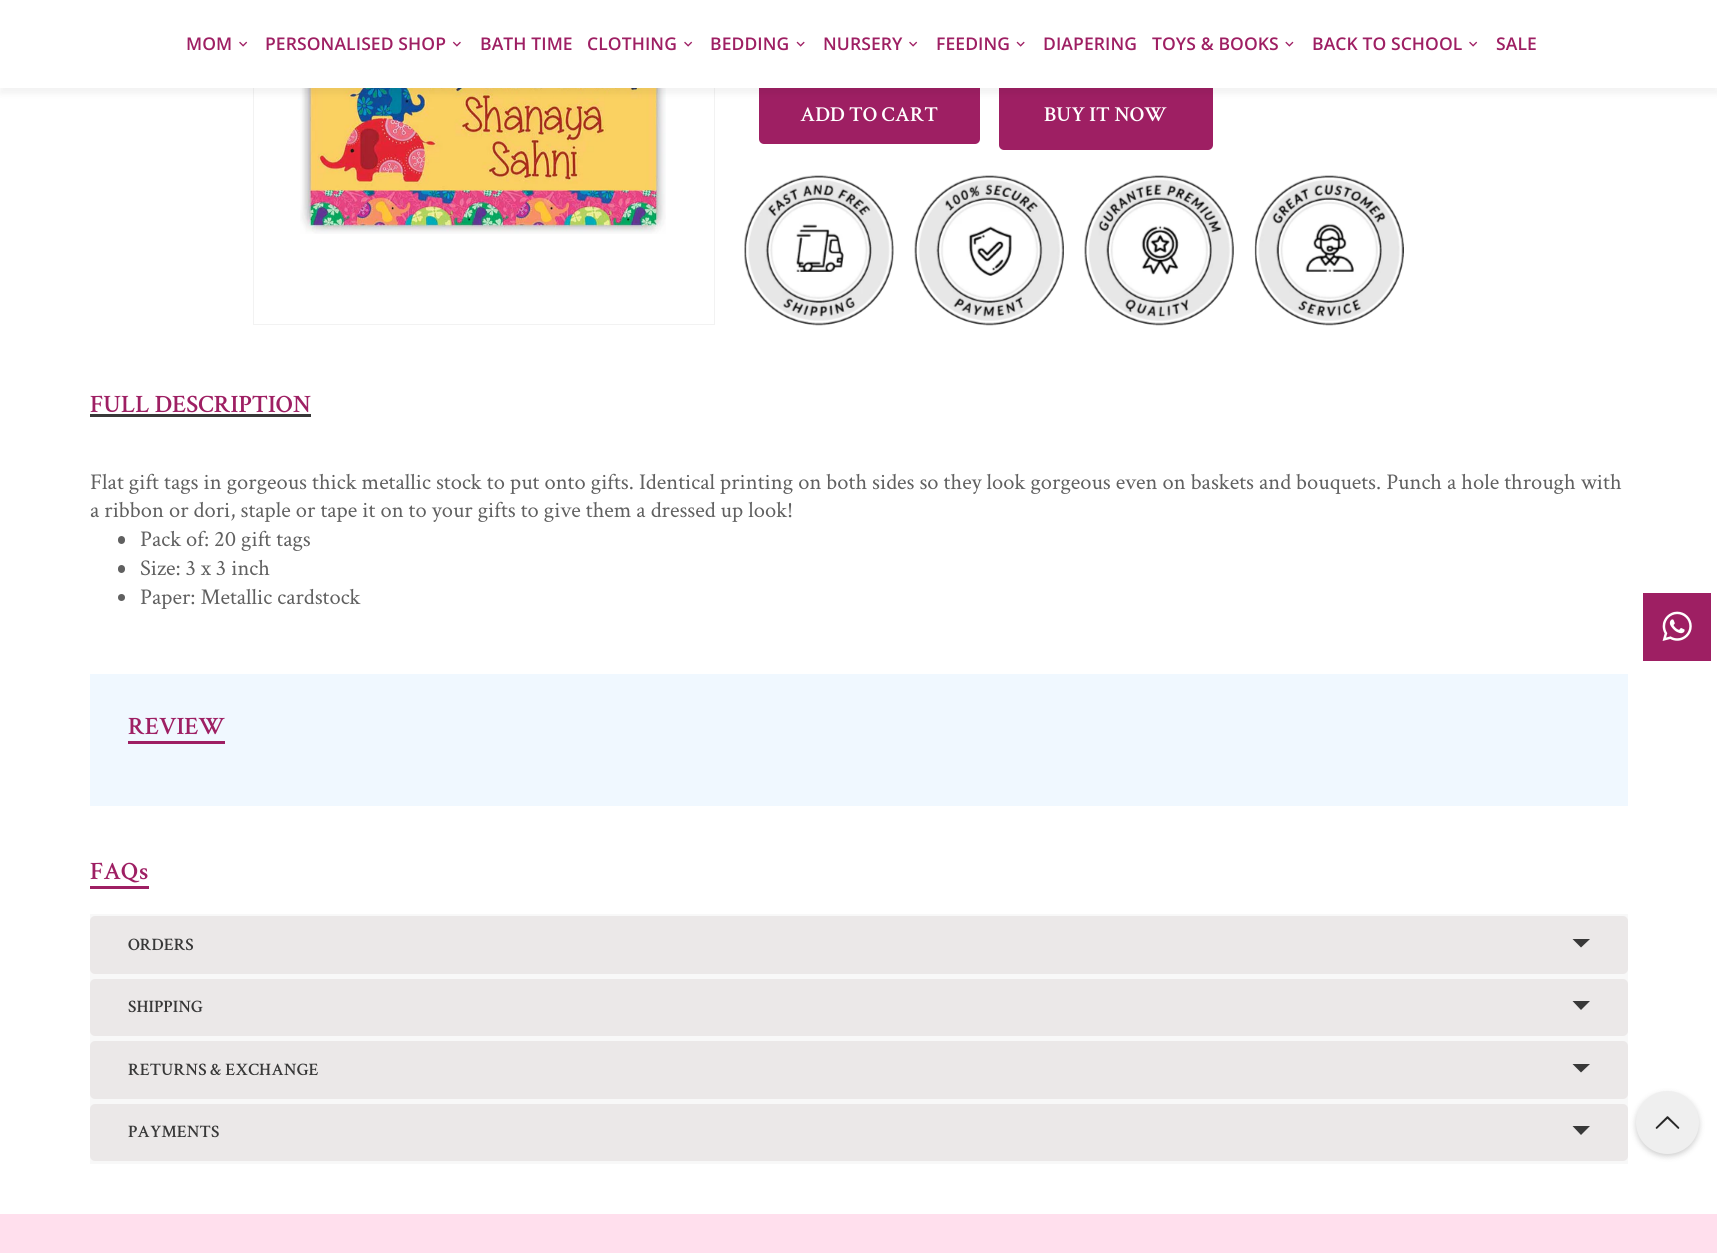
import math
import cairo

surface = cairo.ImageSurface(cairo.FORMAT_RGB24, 1717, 1253)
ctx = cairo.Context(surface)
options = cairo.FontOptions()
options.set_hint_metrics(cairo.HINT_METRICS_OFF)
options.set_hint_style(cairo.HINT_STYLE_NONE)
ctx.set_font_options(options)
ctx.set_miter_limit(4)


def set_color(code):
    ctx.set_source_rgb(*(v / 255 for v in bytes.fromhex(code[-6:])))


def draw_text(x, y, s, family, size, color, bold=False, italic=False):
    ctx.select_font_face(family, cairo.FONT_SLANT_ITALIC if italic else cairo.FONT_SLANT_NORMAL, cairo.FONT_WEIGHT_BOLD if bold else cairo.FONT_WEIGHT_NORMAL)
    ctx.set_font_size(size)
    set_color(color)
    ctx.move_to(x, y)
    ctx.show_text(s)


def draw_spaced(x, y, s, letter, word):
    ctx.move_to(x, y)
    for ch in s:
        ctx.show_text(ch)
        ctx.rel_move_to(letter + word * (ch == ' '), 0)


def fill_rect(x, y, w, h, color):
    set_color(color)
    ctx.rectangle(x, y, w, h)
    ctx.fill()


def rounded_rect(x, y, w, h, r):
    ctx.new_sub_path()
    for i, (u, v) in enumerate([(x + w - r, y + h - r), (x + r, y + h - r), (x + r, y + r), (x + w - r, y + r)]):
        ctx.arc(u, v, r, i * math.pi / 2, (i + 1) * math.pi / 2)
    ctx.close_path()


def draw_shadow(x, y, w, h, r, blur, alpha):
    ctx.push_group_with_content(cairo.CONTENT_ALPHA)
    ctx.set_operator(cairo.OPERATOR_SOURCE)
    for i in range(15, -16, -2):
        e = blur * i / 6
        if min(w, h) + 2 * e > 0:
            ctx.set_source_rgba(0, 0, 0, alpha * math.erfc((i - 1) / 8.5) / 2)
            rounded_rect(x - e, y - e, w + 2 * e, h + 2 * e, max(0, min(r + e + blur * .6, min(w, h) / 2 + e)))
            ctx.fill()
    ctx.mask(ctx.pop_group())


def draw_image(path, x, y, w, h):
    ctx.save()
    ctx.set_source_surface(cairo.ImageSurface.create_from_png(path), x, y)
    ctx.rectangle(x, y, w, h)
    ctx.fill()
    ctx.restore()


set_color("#ffffff")
ctx.paint()
ctx.rectangle(253.5, -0.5, 461, 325)
set_color("#f2f2f2")
ctx.set_line_width(1)
ctx.stroke()
draw_image("assets/img5.png", 300, 88, 366, 146)
set_color("#9e1f63")
rounded_rect(759, 81, 221, 63, 5)
ctx.fill()
rounded_rect(999, 81, 214, 69, 5)
ctx.fill()
set_color("#000000")
draw_shadow(0, 6, 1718, 88, 0, 3, 0.05)
fill_rect(0, 0, 1717, 88, "#ffffff")
ctx.select_font_face("Open Sans SemiBold")
ctx.set_font_size(17.5)
set_color("#9e1f63")
draw_spaced(186, 50, "MOM", 0.1, 0)
draw_image("assets/img1.png", 239, 41, 9, 6)
draw_spaced(265, 50, "PERSONALISED SHOP", 0.1, 0)
draw_image("assets/img2.png", 452, 41, 9, 6)
draw_spaced(480, 50, "BATH TIME", 0.1, 0)
draw_spaced(587, 50, "CLOTHING", 0.1, 0)
draw_image("assets/img1.png", 684, 41, 9, 6)
draw_spaced(710, 50, "BEDDING", 0.1, 0)
draw_image("assets/img3.png", 796, 41, 9, 6)
draw_spaced(823, 50, "NURSERY", 0.1, 0)
draw_image("assets/img1.png", 909, 41, 9, 6)
draw_spaced(936, 50, "FEEDING", 0.1, 0)
draw_image("assets/img3.png", 1016, 41, 9, 6)
draw_spaced(1043, 50, "DIAPERING", 0.1, 0)
draw_spaced(1152, 50, "TOYS & BOOKS", 0.1, 0)
draw_image("assets/img4.png", 1285, 41, 9, 6)
draw_spaced(1312, 50, "BACK TO SCHOOL", 0.1, 0)
draw_image("assets/img1.png", 1469, 41, 9, 6)
draw_spaced(1496, 50, "SALE", 0.1, 0)
draw_text(800, 121, "ADD TO CART", "Crimson Text SemiBold", 21.25, "#ffffff")
draw_text(1044, 121, "BUY IT NOW", "Crimson Text SemiBold", 21.25, "#ffffff")
draw_image("assets/img6.png", 744, 175, 150, 151)
draw_image("assets/img7.png", 914, 175, 150, 151)
draw_image("assets/img8.png", 1084, 175, 150, 151)
draw_image("assets/img9.png", 1254, 175, 150, 151)
draw_text(90, 412, "FULL DESCRIPTION", "Crimson Text SemiBold", 25, "#9e1f63")
fill_rect(90, 414, 221, 3, "#383838")
draw_text(90, 489, "Flat gift tags in gorgeous thick metallic stock to put onto gifts. Identical printing on both sides so they look gorgeous even on baskets and bouquets. Punch a hole through with", "Crimson Text", 22.5, "#606060")
draw_text(90, 517, "a ribbon or dori, staple or tape it on to your gifts to give them a dressed up look!", "Crimson Text", 22.5, "#606060")
rounded_rect(118, 536, 7, 8, 3.5)
ctx.fill()
draw_text(140, 546, "Pack of: 20 gift tags", "Crimson Text", 22.5, "#606060")
rounded_rect(118, 565, 7, 8, 3.5)
ctx.fill()
draw_text(140, 575, "Size: 3 x 3 inch", "Crimson Text", 22.5, "#606060")
ctx.new_path()
ctx.arc(121.5, 597.5, 3.5, 0, 2 * math.pi)
ctx.fill()
draw_text(140, 604, "Paper: Metallic cardstock", "Crimson Text", 22.5, "#606060")
fill_rect(90, 674, 1538, 132, "#f0f8ff")
fill_rect(128, 741, 97, 3, "#9e1f63")
draw_text(128, 734, "REVIEW", "Crimson Text SemiBold", 25, "#9e1f63")
fill_rect(90, 886, 59, 3, "#9e1f63")
draw_text(90, 879, "FAQs", "Crimson Text SemiBold", 25, "#9e1f63")
fill_rect(90, 914, 1538, 250, "#f8f8f8")
set_color("#ebe8e8")
rounded_rect(90, 916, 1538, 58, 5)
ctx.fill()
draw_text(128, 950, "ORDERS", "Crimson Text SemiBold", 17.5, "#383838")
ctx.new_path()
ctx.move_to(1572.5, 939)
ctx.line_to(1590, 939)
ctx.line_to(1581, 947.5)
ctx.close_path()
ctx.fill()
set_color("#ebe8e8")
rounded_rect(90, 979, 1538, 57, 5)
ctx.fill()
draw_text(128, 1012, "SHIPPING", "Crimson Text SemiBold", 17.5, "#383838")
ctx.new_path()
ctx.move_to(1572.5, 1001)
ctx.line_to(1590, 1001)
ctx.line_to(1581, 1010)
ctx.close_path()
ctx.fill()
set_color("#ebe8e8")
rounded_rect(90, 1041, 1538, 58, 5)
ctx.fill()
draw_text(128, 1075, "RETURNS & EXCHANGE", "Crimson Text SemiBold", 17.5, "#383838")
ctx.new_path()
ctx.move_to(1572.5, 1064)
ctx.line_to(1590, 1064)
ctx.line_to(1581, 1072.5)
ctx.close_path()
ctx.fill()
set_color("#ebe8e8")
rounded_rect(90, 1104, 1538, 57, 5)
ctx.fill()
draw_text(128, 1137, "PAYMENTS", "Crimson Text SemiBold", 17.5, "#383838")
ctx.new_path()
ctx.move_to(1572.5, 1126)
ctx.line_to(1590, 1126)
ctx.line_to(1581, 1135)
ctx.close_path()
ctx.fill()
fill_rect(1643, 593, 68, 68, "#9e1f63")
draw_image("assets/img10.png", 1662, 611, 30, 30)
set_color("#000000")
draw_shadow(1636, 1094, 63, 62, 31, 3, 0.2)
set_color("#efefef")
ctx.arc(1667.5, 1122.5, 31.5, 0, 2 * math.pi)
ctx.fill()
draw_image("assets/img11.png", 1655, 1116, 25, 13)
fill_rect(0, 1214, 1717, 39, "#ffdfed")
surface.write_to_png("output.png")
